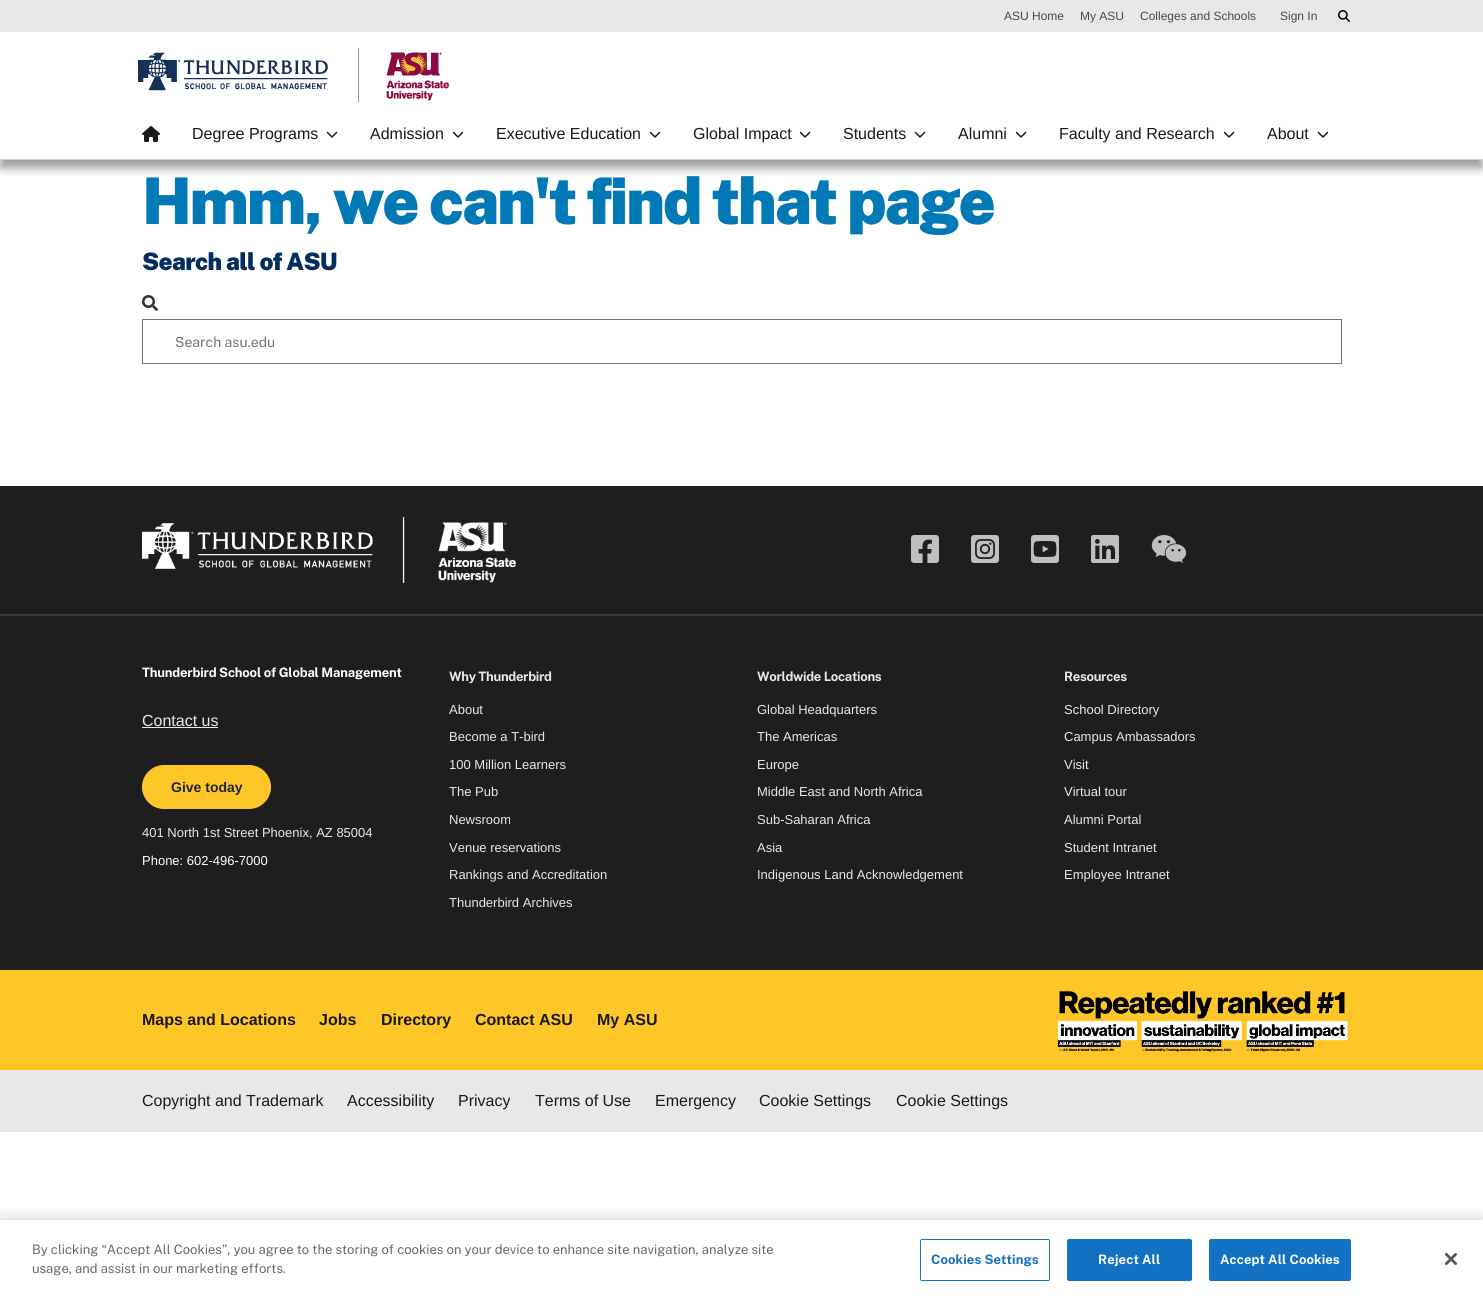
import math
import cairo

surface = cairo.ImageSurface(cairo.FORMAT_RGB24, 1483, 1302)
ctx = cairo.Context(surface)
options = cairo.FontOptions()
options.set_hint_metrics(cairo.HINT_METRICS_OFF)
options.set_hint_style(cairo.HINT_STYLE_NONE)
ctx.set_font_options(options)
ctx.set_miter_limit(4)


def set_color(code):
    ctx.set_source_rgb(*(v / 255 for v in bytes.fromhex(code[-6:])))


def draw_text(x, y, s, family, size, color, bold=False, italic=False):
    ctx.select_font_face(family, cairo.FONT_SLANT_ITALIC if italic else cairo.FONT_SLANT_NORMAL, cairo.FONT_WEIGHT_BOLD if bold else cairo.FONT_WEIGHT_NORMAL)
    ctx.set_font_size(size)
    set_color(color)
    ctx.move_to(x, y)
    ctx.show_text(s)


def draw_spaced(x, y, s, letter, word):
    ctx.move_to(x, y)
    for ch in s:
        ctx.show_text(ch)
        ctx.rel_move_to(letter + word * (ch == ' '), 0)


def fill_rect(x, y, w, h, color):
    set_color(color)
    ctx.rectangle(x, y, w, h)
    ctx.fill()


def rounded_rect(x, y, w, h, r):
    ctx.new_sub_path()
    for i, (u, v) in enumerate([(x + w - r, y + h - r), (x + r, y + h - r), (x + r, y + r), (x + w - r, y + r)]):
        ctx.arc(u, v, r, i * math.pi / 2, (i + 1) * math.pi / 2)
    ctx.close_path()


def draw_shadow(x, y, w, h, r, blur, alpha):
    ctx.push_group_with_content(cairo.CONTENT_ALPHA)
    ctx.set_operator(cairo.OPERATOR_SOURCE)
    for i in range(15, -16, -2):
        e = blur * i / 6
        if min(w, h) + 2 * e > 0:
            ctx.set_source_rgba(0, 0, 0, alpha * math.erfc((i - 1) / 8.5) / 2)
            rounded_rect(x - e, y - e, w + 2 * e, h + 2 * e, max(0, min(r + e + blur * .6, min(w, h) / 2 + e)))
            ctx.fill()
    ctx.mask(ctx.pop_group())


def draw_image(path, x, y, w, h):
    ctx.save()
    ctx.set_source_surface(cairo.ImageSurface.create_from_png(path), x, y)
    ctx.rectangle(x, y, w, h)
    ctx.fill()
    ctx.restore()


set_color("#ffffff")
ctx.paint()
ctx.save()
ctx.rectangle(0, 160, 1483, 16)
ctx.clip()
set_color("#000000")
draw_shadow(0, 8, 1483, 160, 0, 5, 0.4)
ctx.restore()
fill_rect(0, 0, 1483, 32, "#e8e8e8")
draw_text(1004, 20, "ASU Home", "Liberation Sans", 12, "#484848")
draw_text(1080, 20, "My ASU", "Liberation Sans", 12, "#484848")
draw_text(1140, 20, "Colleges and Schools", "Liberation Sans", 12, "#484848")
draw_text(1280, 20, "Sign In", "Liberation Sans", 12, "#484848")
draw_image("assets/img1.png", 1338, 10, 12, 12)
fill_rect(0, 159, 1483, 1, "#d0d0d0")
draw_image("assets/img2.png", 138, 52, 190, 39)
fill_rect(358, 48, 1, 54, "#8e9c9c")
draw_image("assets/img3.png", 386, 52, 63, 49)
draw_image("assets/img4.png", 142, 126, 18, 16)
draw_text(192, 139, "Degree Programs", "Liberation Sans", 16, "#191919")
draw_image("assets/img5.png", 326, 131, 12, 7)
draw_text(370, 139, "Admission", "Liberation Sans", 16, "#191919")
draw_image("assets/img5.png", 452, 131, 12, 7)
draw_text(496, 139, "Executive Education", "Liberation Sans", 16, "#191919")
draw_image("assets/img5.png", 649, 131, 12, 7)
draw_text(693, 139, "Global Impact", "Liberation Sans", 16, "#191919")
draw_image("assets/img5.png", 799, 131, 12, 7)
draw_text(843, 139, "Students", "Liberation Sans", 16, "#191919")
draw_image("assets/img5.png", 914, 131, 12, 7)
draw_text(958, 139, "Alumni", "Liberation Sans", 16, "#191919")
draw_image("assets/img5.png", 1015, 131, 12, 7)
draw_text(1059, 139, "Faculty and Research", "Liberation Sans", 16, "#191919")
draw_image("assets/img5.png", 1223, 131, 12, 7)
draw_text(1267, 139, "About", "Liberation Sans", 16, "#191919")
draw_image("assets/img5.png", 1317, 131, 12, 7)
ctx.select_font_face("Public Sans Black")
ctx.set_font_size(64.4)
set_color("#0179b7")
draw_spaced(142, 224, "Hmm, we can't find that page", -2.25, 0)
ctx.set_font_size(24)
set_color("#022e5f")
draw_spaced(142, 270, "Search all of ASU", -0.6, 0)
draw_image("assets/img6.png", 142, 295, 16, 16)
ctx.rectangle(142.5, 319.5, 1199, 44)
set_color("#747474")
ctx.set_line_width(1)
ctx.stroke()
draw_text(175, 347, "Search asu.edu", "Public Sans", 14, "#6c757d")
fill_rect(0, 486, 1483, 128, "#1e1e1e")
draw_image("assets/img7.png", 142, 517, 374, 66)
draw_image("assets/img8.png", 911, 535, 28, 28)
draw_image("assets/img9.png", 971, 535, 28, 28)
draw_image("assets/img10.png", 1031, 535, 28, 28)
draw_image("assets/img11.png", 1091, 535, 28, 28)
draw_image("assets/img12.png", 1151, 535, 36, 28)
fill_rect(0, 616, 1483, 354, "#1e1e1e")
fill_rect(0, 614, 1483, 2, "#393939")
ctx.select_font_face("Public Sans", cairo.FONT_SLANT_NORMAL, cairo.FONT_WEIGHT_BOLD)
ctx.set_font_size(13)
set_color("#ffffff")
draw_spaced(142, 677, "Thunderbird School of Global Management", -0.2, 0)
draw_text(142, 726, "Contact us", "Liberation Sans", 16, "#e8e8e8")
fill_rect(142, 727, 76, 1, "#e8e8e8")
set_color("#ffc627")
rounded_rect(142.5, 765.5, 128, 43, 21.5)
ctx.fill_preserve()
ctx.stroke()
draw_text(171, 792, "Give today", "Liberation Sans", 14, "#212529", bold=True)
draw_text(142, 837, "401 North 1st Street Phoenix, AZ 85004", "Liberation Sans", 13, "#e8e8e8")
draw_text(142, 865, "Phone: 602-496-7000", "Liberation Sans", 13, "#ffffff")
ctx.select_font_face("Public Sans", cairo.FONT_SLANT_NORMAL, cairo.FONT_WEIGHT_BOLD)
set_color("#e8e8e8")
draw_spaced(449, 681, "Why Thunderbird", -0.3, 0)
draw_text(449, 714, "About", "Liberation Sans", 13, "#e8e8e8")
draw_text(449, 741, "Become a T-bird", "Liberation Sans", 13, "#e8e8e8")
draw_text(449, 769, "100 Million Learners", "Liberation Sans", 13, "#e8e8e8")
draw_text(449, 796, "The Pub", "Liberation Sans", 13, "#e8e8e8")
draw_text(449, 824, "Newsroom", "Liberation Sans", 13, "#e8e8e8")
draw_text(449, 852, "Venue reservations", "Liberation Sans", 13, "#e8e8e8")
draw_text(449, 879, "Rankings and Accreditation", "Liberation Sans", 13, "#e8e8e8")
draw_text(449, 907, "Thunderbird Archives", "Liberation Sans", 13, "#e8e8e8")
ctx.select_font_face("Public Sans", cairo.FONT_SLANT_NORMAL, cairo.FONT_WEIGHT_BOLD)
draw_spaced(757, 681, "Worldwide Locations", -0.3, 0)
draw_text(757, 714, "Global Headquarters", "Liberation Sans", 13, "#e8e8e8")
draw_text(757, 741, "The Americas", "Liberation Sans", 13, "#e8e8e8")
draw_text(757, 769, "Europe", "Liberation Sans", 13, "#e8e8e8")
draw_text(757, 796, "Middle East and North Africa", "Liberation Sans", 13, "#e8e8e8")
draw_text(757, 824, "Sub-Saharan Africa", "Liberation Sans", 13, "#e8e8e8")
draw_text(757, 852, "Asia", "Liberation Sans", 13, "#e8e8e8")
draw_text(757, 879, "Indigenous Land Acknowledgement", "Liberation Sans", 13, "#e8e8e8")
ctx.select_font_face("Public Sans", cairo.FONT_SLANT_NORMAL, cairo.FONT_WEIGHT_BOLD)
draw_spaced(1064, 681, "Resources", -0.3, 0)
draw_text(1064, 714, "School Directory", "Liberation Sans", 13, "#e8e8e8")
draw_text(1064, 741, "Campus Ambassadors", "Liberation Sans", 13, "#e8e8e8")
draw_text(1064, 769, "Visit", "Liberation Sans", 13, "#e8e8e8")
draw_text(1064, 796, "Virtual tour", "Liberation Sans", 13, "#e8e8e8")
draw_text(1064, 824, "Alumni Portal", "Liberation Sans", 13, "#e8e8e8")
draw_text(1064, 852, "Student Intranet", "Liberation Sans", 13, "#e8e8e8")
draw_text(1064, 879, "Employee Intranet", "Liberation Sans", 13, "#e8e8e8")
fill_rect(0, 970, 1483, 100, "#ffc627")
draw_text(142, 1025, "Maps and Locations", "Liberation Sans", 16, "#191919", bold=True)
draw_text(319, 1025, "Jobs", "Liberation Sans", 16, "#191919", bold=True)
draw_text(381, 1025, "Directory", "Liberation Sans", 16, "#191919", bold=True)
draw_text(475, 1025, "Contact ASU", "Liberation Sans", 16, "#191919", bold=True)
draw_text(597, 1025, "My ASU", "Liberation Sans", 16, "#191919", bold=True)
draw_image("assets/img13.png", 1057, 991, 291, 61)
fill_rect(0, 1070, 1483, 62, "#e8e8e8")
draw_text(142, 1106, "Copyright and Trademark", "Liberation Sans", 16, "#191919")
draw_text(347, 1106, "Accessibility", "Liberation Sans", 16, "#191919")
draw_text(458, 1106, "Privacy", "Liberation Sans", 16, "#191919")
draw_text(535, 1106, "Terms of Use", "Liberation Sans", 16, "#191919")
draw_text(655, 1106, "Emergency", "Liberation Sans", 16, "#191919")
draw_text(759, 1106, "Cookie Settings", "Liberation Sans", 16, "#191919")
draw_text(896, 1106, "Cookie Settings", "Liberation Sans", 16, "#191919")
ctx.save()
ctx.rectangle(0, 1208, 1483, 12)
ctx.clip()
set_color("#000000")
draw_shadow(0, 1220, 1483, 82, 0, 9, 0.2)
ctx.restore()
draw_text(32, 1254, "By clicking “Accept All Cookies”, you agree to the storing of cookies on your device to enhance site navigation, analyze site", "Public Sans", 13, "#696969")
draw_text(32, 1273, "usage, and assist in our marketing efforts.", "Public Sans", 13, "#696969")
rounded_rect(920.5, 1239.5, 129, 41, 1.5)
set_color("#1371c3")
ctx.stroke()
ctx.select_font_face("Public Sans", cairo.FONT_SLANT_NORMAL, cairo.FONT_WEIGHT_BOLD)
draw_spaced(931, 1264, "Cookies Settings", 0.1, 0)
rounded_rect(1067.5, 1239.5, 124, 41, 1.5)
ctx.fill_preserve()
ctx.stroke()
set_color("#ffffff")
draw_spaced(1098, 1264, "Reject All", 0.1, 0)
set_color("#1371c3")
rounded_rect(1209.5, 1239.5, 141, 41, 1.5)
ctx.fill_preserve()
ctx.stroke()
set_color("#ffffff")
draw_spaced(1220, 1264, "Accept All Cookies", 0.1, 0)
draw_image("assets/img14.png", 1445, 1253, 12, 12)
surface.write_to_png("output.png")
